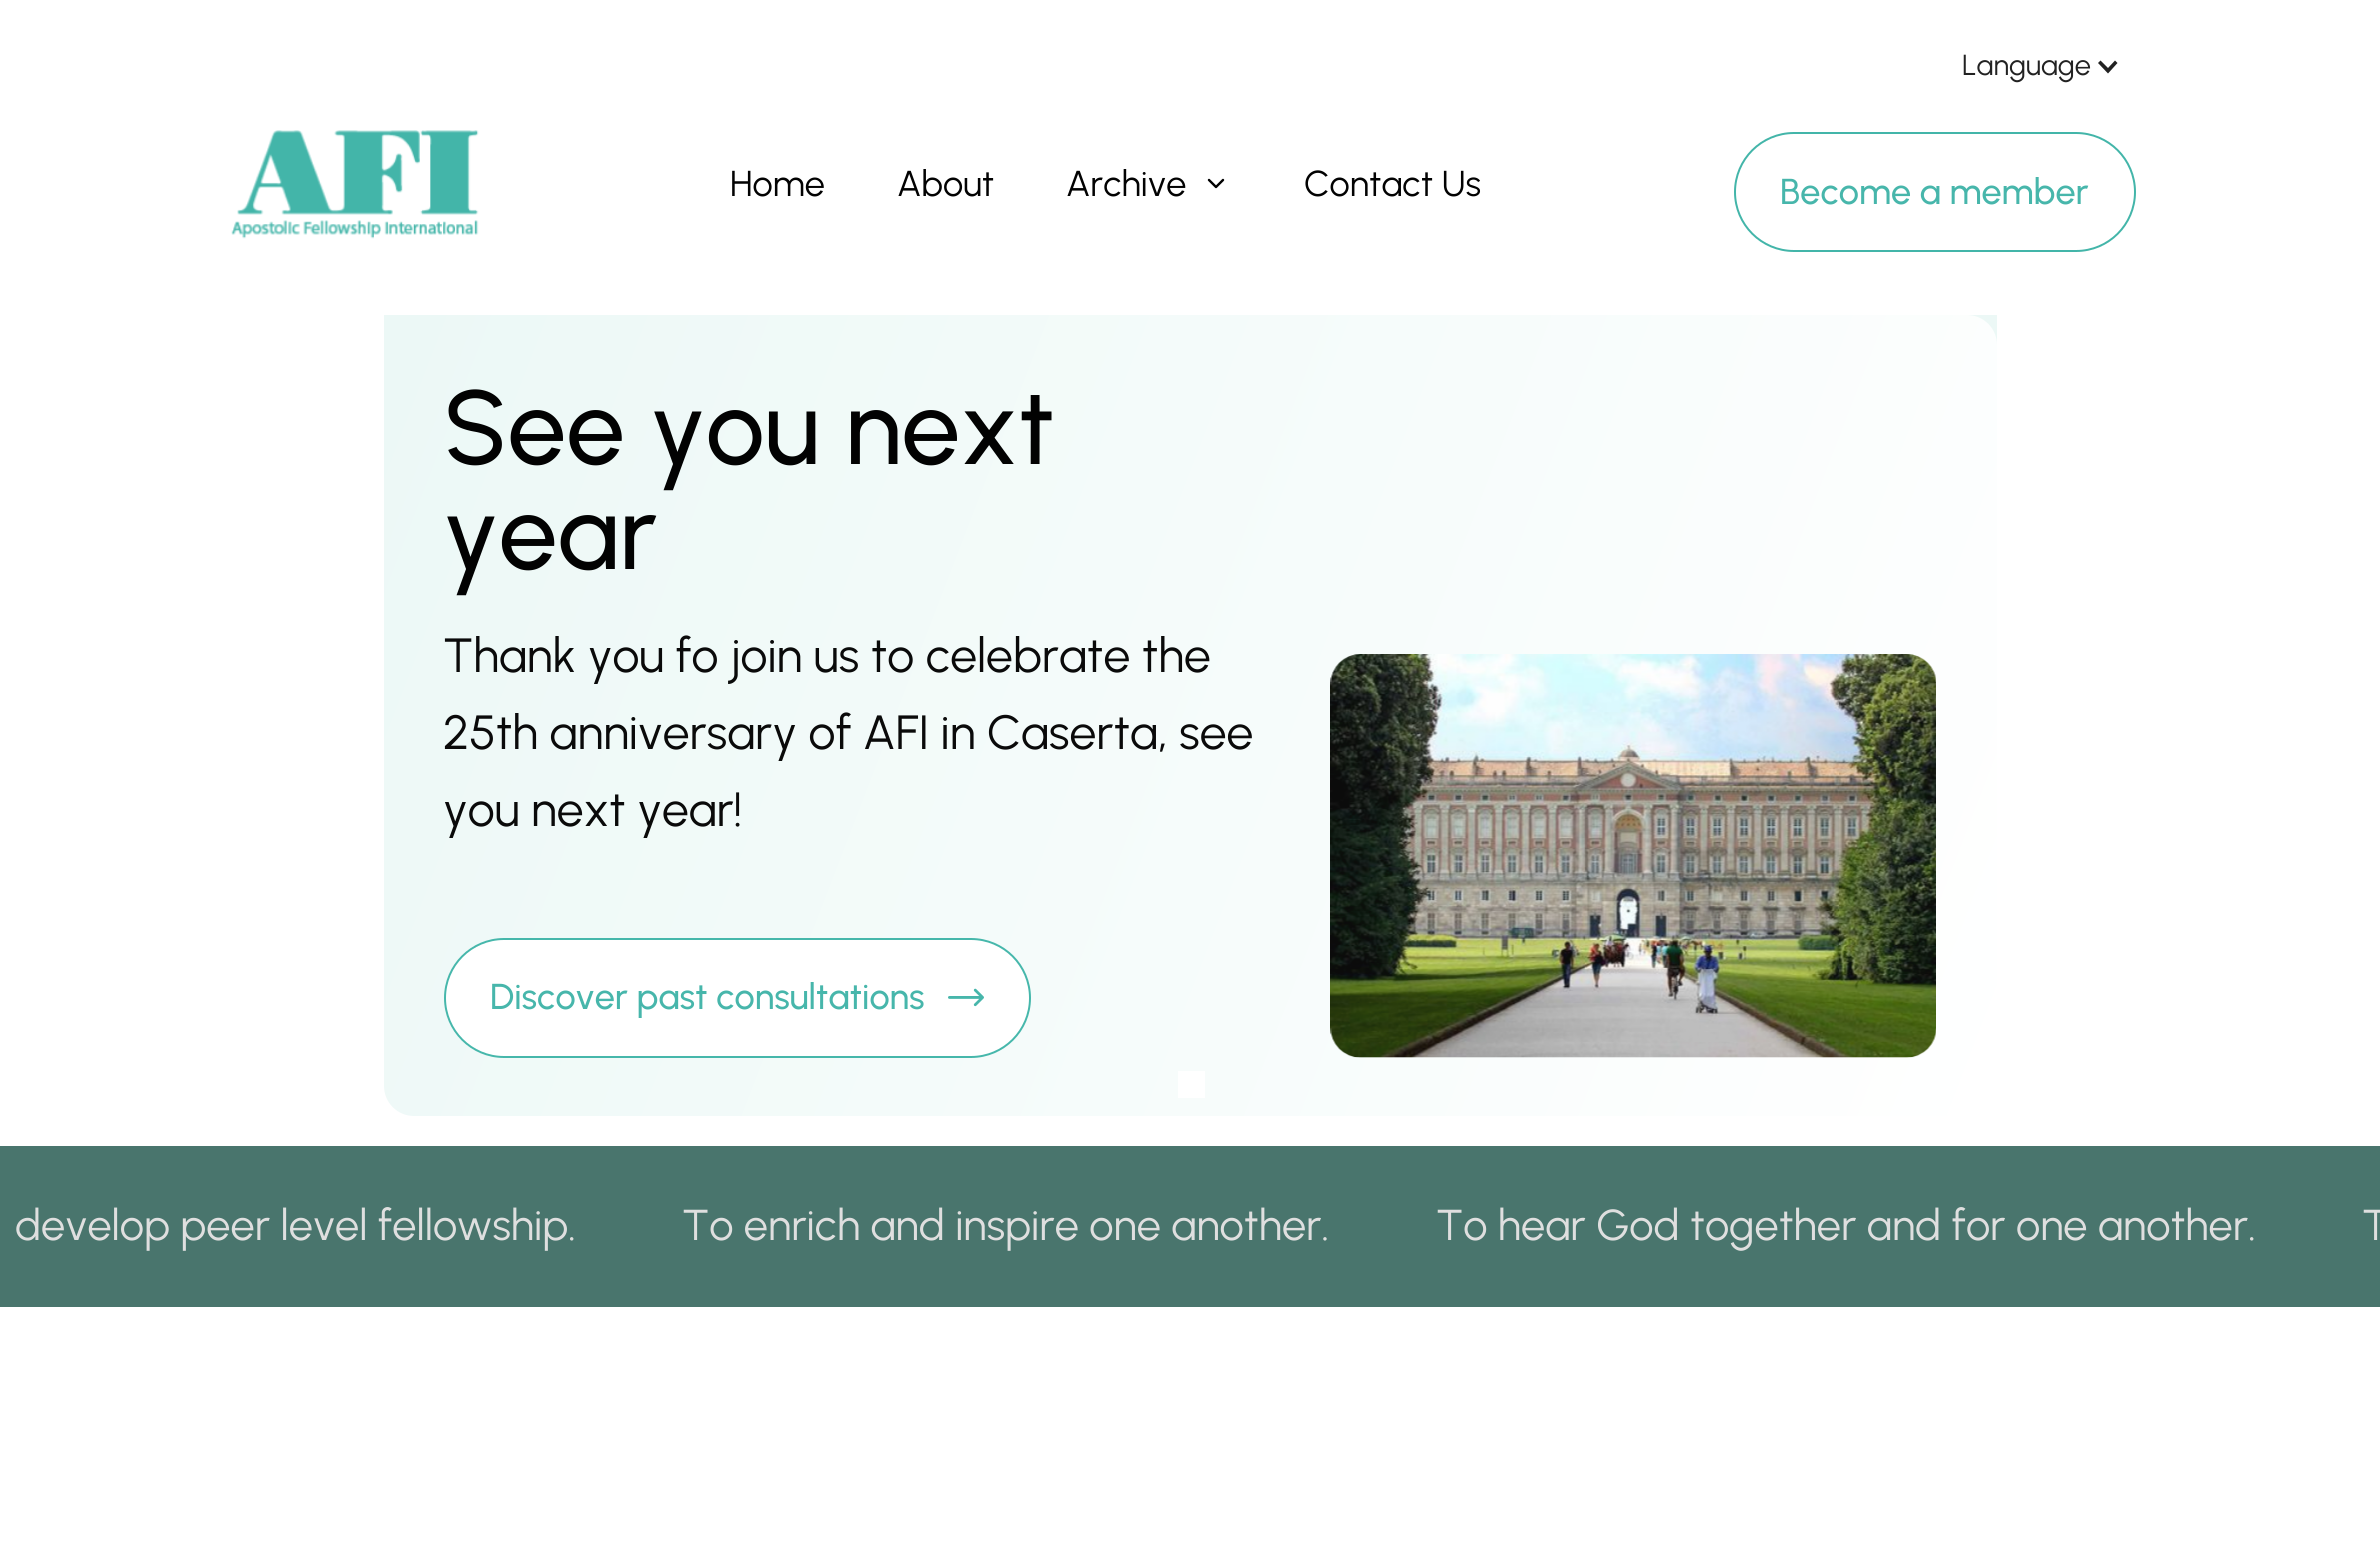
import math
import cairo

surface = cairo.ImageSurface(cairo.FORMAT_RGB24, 2380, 1563)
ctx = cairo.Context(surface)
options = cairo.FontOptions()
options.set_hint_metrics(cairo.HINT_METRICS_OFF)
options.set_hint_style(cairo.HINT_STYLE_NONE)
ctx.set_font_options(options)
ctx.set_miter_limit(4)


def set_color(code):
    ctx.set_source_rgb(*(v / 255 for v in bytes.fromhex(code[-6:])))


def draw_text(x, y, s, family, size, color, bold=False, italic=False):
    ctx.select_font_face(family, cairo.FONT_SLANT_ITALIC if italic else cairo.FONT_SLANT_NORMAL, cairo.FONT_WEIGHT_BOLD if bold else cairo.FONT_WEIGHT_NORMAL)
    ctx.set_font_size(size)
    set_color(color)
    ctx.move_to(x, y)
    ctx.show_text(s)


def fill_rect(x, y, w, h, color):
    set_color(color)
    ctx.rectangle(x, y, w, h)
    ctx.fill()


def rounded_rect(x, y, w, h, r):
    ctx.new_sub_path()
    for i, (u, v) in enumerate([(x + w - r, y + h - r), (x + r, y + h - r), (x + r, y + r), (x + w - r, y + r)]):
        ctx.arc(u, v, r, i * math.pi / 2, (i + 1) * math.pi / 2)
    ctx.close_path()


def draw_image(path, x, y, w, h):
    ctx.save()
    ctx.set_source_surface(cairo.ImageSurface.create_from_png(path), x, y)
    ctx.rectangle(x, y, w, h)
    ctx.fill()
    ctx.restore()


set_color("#ffffff")
ctx.paint()
draw_text(1962, 75, "Language", "Urbanist", 29, "#222222")
ctx.new_path()
ctx.move_to(2115, 60.5)
ctx.line_to(2108, 68)
ctx.line_to(2100.5, 60.5)
ctx.line_to(2098, 63)
ctx.line_to(2108, 73.5)
ctx.line_to(2117.5, 63)
ctx.close_path()
ctx.fill()
draw_image("assets/img1.png", 231, 130, 248, 109)
draw_text(730, 196, "Home", "Urbanist", 36, "#020202")
draw_text(897, 196, "About", "Urbanist", 36, "#020202")
draw_text(1066, 196, "Archive", "Urbanist", 36, "#020202")
ctx.new_path()
ctx.move_to(1209, 180)
ctx.line_to(1216, 187)
ctx.line_to(1223, 180)
set_color("#000000")
ctx.set_line_width(2.4)
ctx.set_line_cap(cairo.LINE_CAP_ROUND)
ctx.set_line_join(cairo.LINE_JOIN_ROUND)
ctx.stroke()
draw_text(1304, 196, "Contact Us", "Urbanist", 36, "#020202")
rounded_rect(1735, 133, 400, 118, 59)
set_color("#43b5a9")
ctx.set_line_width(2)
ctx.set_line_cap(cairo.LINE_CAP_BUTT)
ctx.set_line_join(cairo.LINE_JOIN_MITER)
ctx.stroke()
draw_text(1780, 204, "Become a member", "Urbanist Medium", 36, "#47b6ab")
gradient = cairo.LinearGradient(1190, 315, 1190, 1116)
gradient.add_color_stop_rgba(0, 0.925, 0.973, 0.965, 1)
gradient.add_color_stop_rgba(1, 1, 1, 1, 1)
ctx.set_source(gradient)
ctx.rectangle(384, 315, 1613, 696)
ctx.fill()
gradient = cairo.LinearGradient(354, 394, 2027, 1037)
gradient.add_color_stop_rgba(0, 0.925, 0.973, 0.965, 1)
gradient.add_color_stop_rgba(1, 1, 1, 1, 1)
ctx.set_source(gradient)
rounded_rect(384, 315, 1613, 801, 30)
ctx.fill()
draw_text(443, 464, "See you next", "Urbanist Medium", 105, "#020202")
draw_text(443, 569, "year", "Urbanist Medium", 105, "#020202")
draw_text(443, 672, "Thank you fo join us to celebrate the", "Urbanist", 48, "#0a0a0a")
draw_text(443, 749, "25th anniversary of AFI in Caserta, see", "Urbanist", 48, "#0a0a0a")
draw_text(443, 826, "you next year!", "Urbanist", 48, "#0a0a0a")
ctx.set_source_rgba(1, 1, 1, 0.98)
rounded_rect(444, 938, 587, 120, 60)
ctx.fill()
rounded_rect(445, 939, 585, 118, 59)
ctx.set_source_rgba(0.263, 0.71, 0.663, 0.98)
ctx.stroke()
draw_text(490, 1009, "Discover past consultations", "Urbanist Medium", 36, "#47b6ab")
draw_image("assets/img2.png", 948, 988, 36, 19)
draw_image("assets/img3.png", 1330, 654, 606, 404)
fill_rect(1178, 1071, 27, 27, "#ffffff")
fill_rect(0, 1146, 2380, 161, "#49756d")
draw_text(15, 1240, "develop peer level fellowship.", "Urbanist", 43.25, "#dfdfdf")
draw_text(682, 1240, "To enrich and inspire one another.", "Urbanist", 43.25, "#dfdfdf")
draw_text(1436, 1240, "To hear God together and for one another.", "Urbanist", 43.25, "#dfdfdf")
draw_text(2362, 1240, "T", "Urbanist", 43.25, "#dfdfdf")
surface.write_to_png("output.png")
